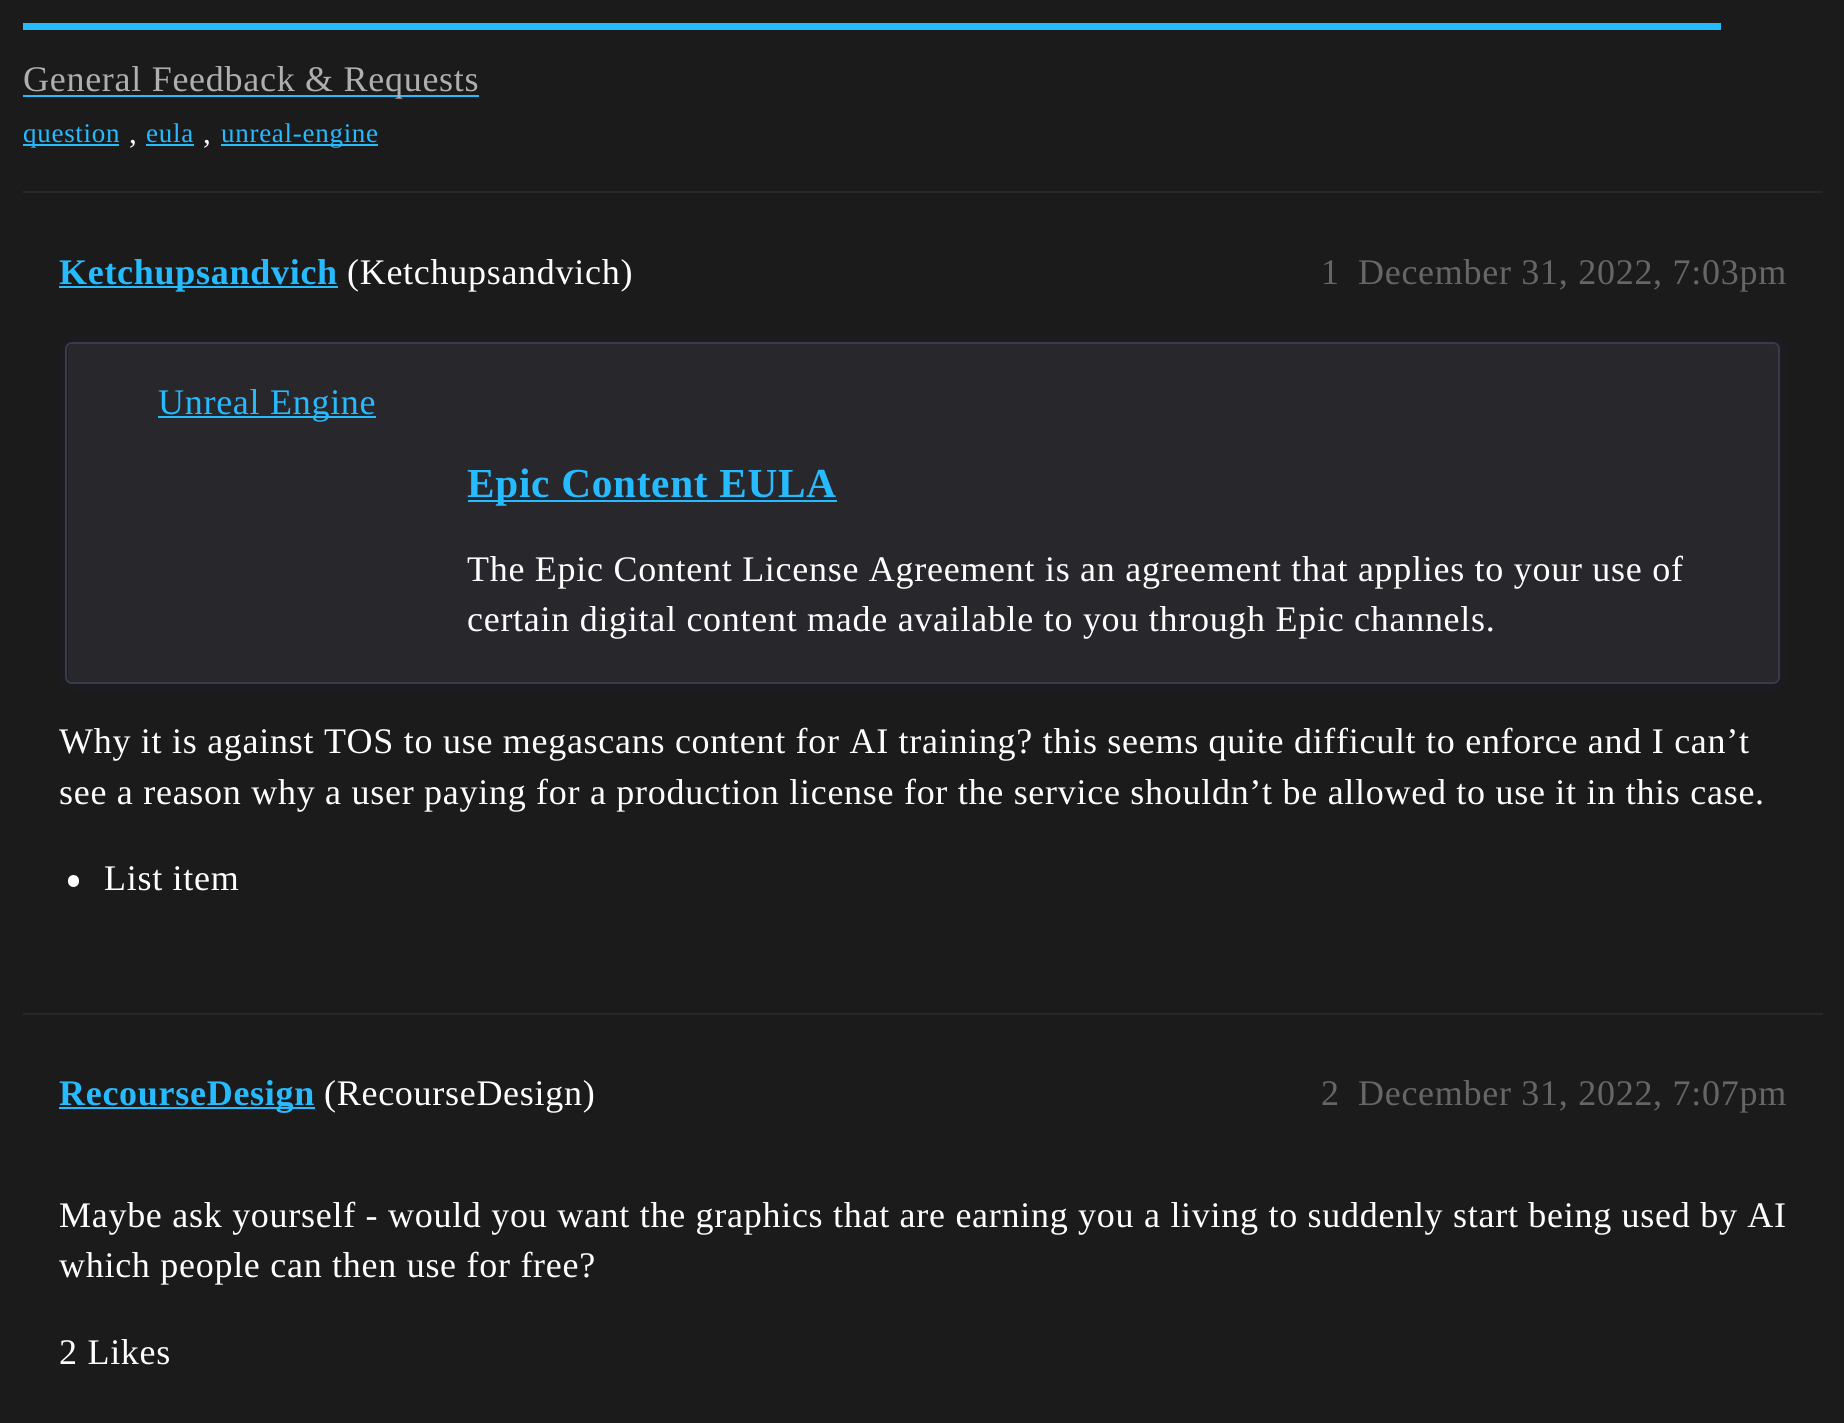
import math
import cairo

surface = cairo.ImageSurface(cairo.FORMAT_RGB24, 1844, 1423)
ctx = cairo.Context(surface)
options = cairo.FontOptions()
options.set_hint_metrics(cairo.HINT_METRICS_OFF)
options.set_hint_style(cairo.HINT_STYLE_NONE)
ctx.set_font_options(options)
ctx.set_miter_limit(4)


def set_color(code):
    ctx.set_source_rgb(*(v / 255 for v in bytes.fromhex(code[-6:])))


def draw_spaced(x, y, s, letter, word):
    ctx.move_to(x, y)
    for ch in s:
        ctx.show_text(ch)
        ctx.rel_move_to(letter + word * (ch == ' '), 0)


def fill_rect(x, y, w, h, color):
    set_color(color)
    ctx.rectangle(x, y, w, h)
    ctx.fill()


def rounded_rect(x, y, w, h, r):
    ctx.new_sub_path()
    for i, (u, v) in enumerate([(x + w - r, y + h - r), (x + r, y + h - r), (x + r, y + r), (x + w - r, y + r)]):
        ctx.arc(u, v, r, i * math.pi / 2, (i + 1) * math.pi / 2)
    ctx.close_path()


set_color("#1b1b1b")
ctx.paint()
fill_rect(23, 23, 1698, 7, "#26bbff")
fill_rect(23, 95, 456, 2, "#26bbff")
ctx.select_font_face("Liberation Serif")
ctx.set_font_size(36)
set_color("#afafaf")
draw_spaced(23, 91, "General Feedback & Requests", 0.72, 0)
fill_rect(23, 144, 96, 2, "#26bbff")
ctx.set_font_size(27)
draw_spaced(23, 142, "question", 0.72, 0)
ctx.set_font_size(31)
set_color("#ffffff")
draw_spaced(129, 143, ",", 0.72, 0)
ctx.set_font_size(27)
set_color("#26bbff")
draw_spaced(146, 142, "eula", 0.72, 0)
fill_rect(146, 144, 48, 2, "#26bbff")
ctx.set_font_size(31)
set_color("#ffffff")
draw_spaced(203, 143, ",", 0.72, 0)
fill_rect(221, 144, 157, 2, "#26bbff")
ctx.set_font_size(27)
draw_spaced(221, 142, "unreal-engine", 0.72, 0)
fill_rect(23, 191, 1800, 2, "#28282c")
fill_rect(59, 286, 279, 2, "#26bbff")
ctx.select_font_face("Liberation Serif", cairo.FONT_SLANT_NORMAL, cairo.FONT_WEIGHT_BOLD)
ctx.set_font_size(36)
draw_spaced(59, 284, "Ketchupsandvich", 0.72, 0)
ctx.select_font_face("Liberation Serif")
set_color("#ffffff")
draw_spaced(347, 284, "(Ketchupsandvich)", 0.72, 0)
set_color("#666666")
draw_spaced(1321, 284, "1", 0.72, 0)
draw_spaced(1358, 284, "December 31, 2022, 7:03pm", 0.72, 0)
rounded_rect(63.5, 339.5, 1719, 347, 9.5)
set_color("#1c1c20")
ctx.set_line_width(9)
ctx.stroke()
rounded_rect(66, 343, 1713, 340, 6)
set_color("#373b4b")
ctx.set_line_width(2)
ctx.stroke()
set_color("#28282c")
rounded_rect(68, 344, 1710, 338, 5)
ctx.fill()
fill_rect(158, 416, 218, 2, "#26bbff")
draw_spaced(158, 414, "Unreal Engine", 0.72, 0)
fill_rect(468, 500, 369, 2, "#26bbff")
ctx.select_font_face("Liberation Serif", cairo.FONT_SLANT_NORMAL, cairo.FONT_WEIGHT_BOLD)
ctx.set_font_size(41.25)
draw_spaced(467, 497, "Epic Content EULA", 0.72, 0)
ctx.select_font_face("Liberation Serif")
ctx.set_font_size(36)
set_color("#ffffff")
draw_spaced(467, 581, "The Epic Content License Agreement is an agreement that applies to your use of", 0.72, 0)
draw_spaced(467, 631, "certain digital content made available to you through Epic channels.", 0.72, 0)
draw_spaced(59, 753, "Why it is against TOS to use megascans content for AI training? this seems quite difficult to enforce and I can’t", 0.72, 0)
draw_spaced(59, 804, "see a reason why a user paying for a production license for the service shouldn’t be allowed to use it in this case.", 0.72, 0)
rounded_rect(68, 875, 11, 12, 5.5)
ctx.fill()
draw_spaced(104, 890, "List item", 0.72, 0)
fill_rect(23, 1013, 1800, 2, "#28282c")
fill_rect(59, 1107, 256, 2, "#26bbff")
ctx.select_font_face("Liberation Serif", cairo.FONT_SLANT_NORMAL, cairo.FONT_WEIGHT_BOLD)
draw_spaced(59, 1105, "RecourseDesign", 0.72, 0)
ctx.select_font_face("Liberation Serif")
set_color("#ffffff")
draw_spaced(324, 1105, "(RecourseDesign)", 0.72, 0)
set_color("#666666")
draw_spaced(1321, 1105, "2", 0.72, 0)
draw_spaced(1358, 1105, "December 31, 2022, 7:07pm", 0.72, 0)
set_color("#ffffff")
draw_spaced(59, 1227, "Maybe ask yourself - would you want the graphics that are earning you a living to suddenly start being used by AI", 0.72, 0)
draw_spaced(59, 1277, "which people can then use for free?", 0.72, 0)
draw_spaced(59, 1364, "2 Likes", 0.72, 0)
surface.write_to_png("output.png")
